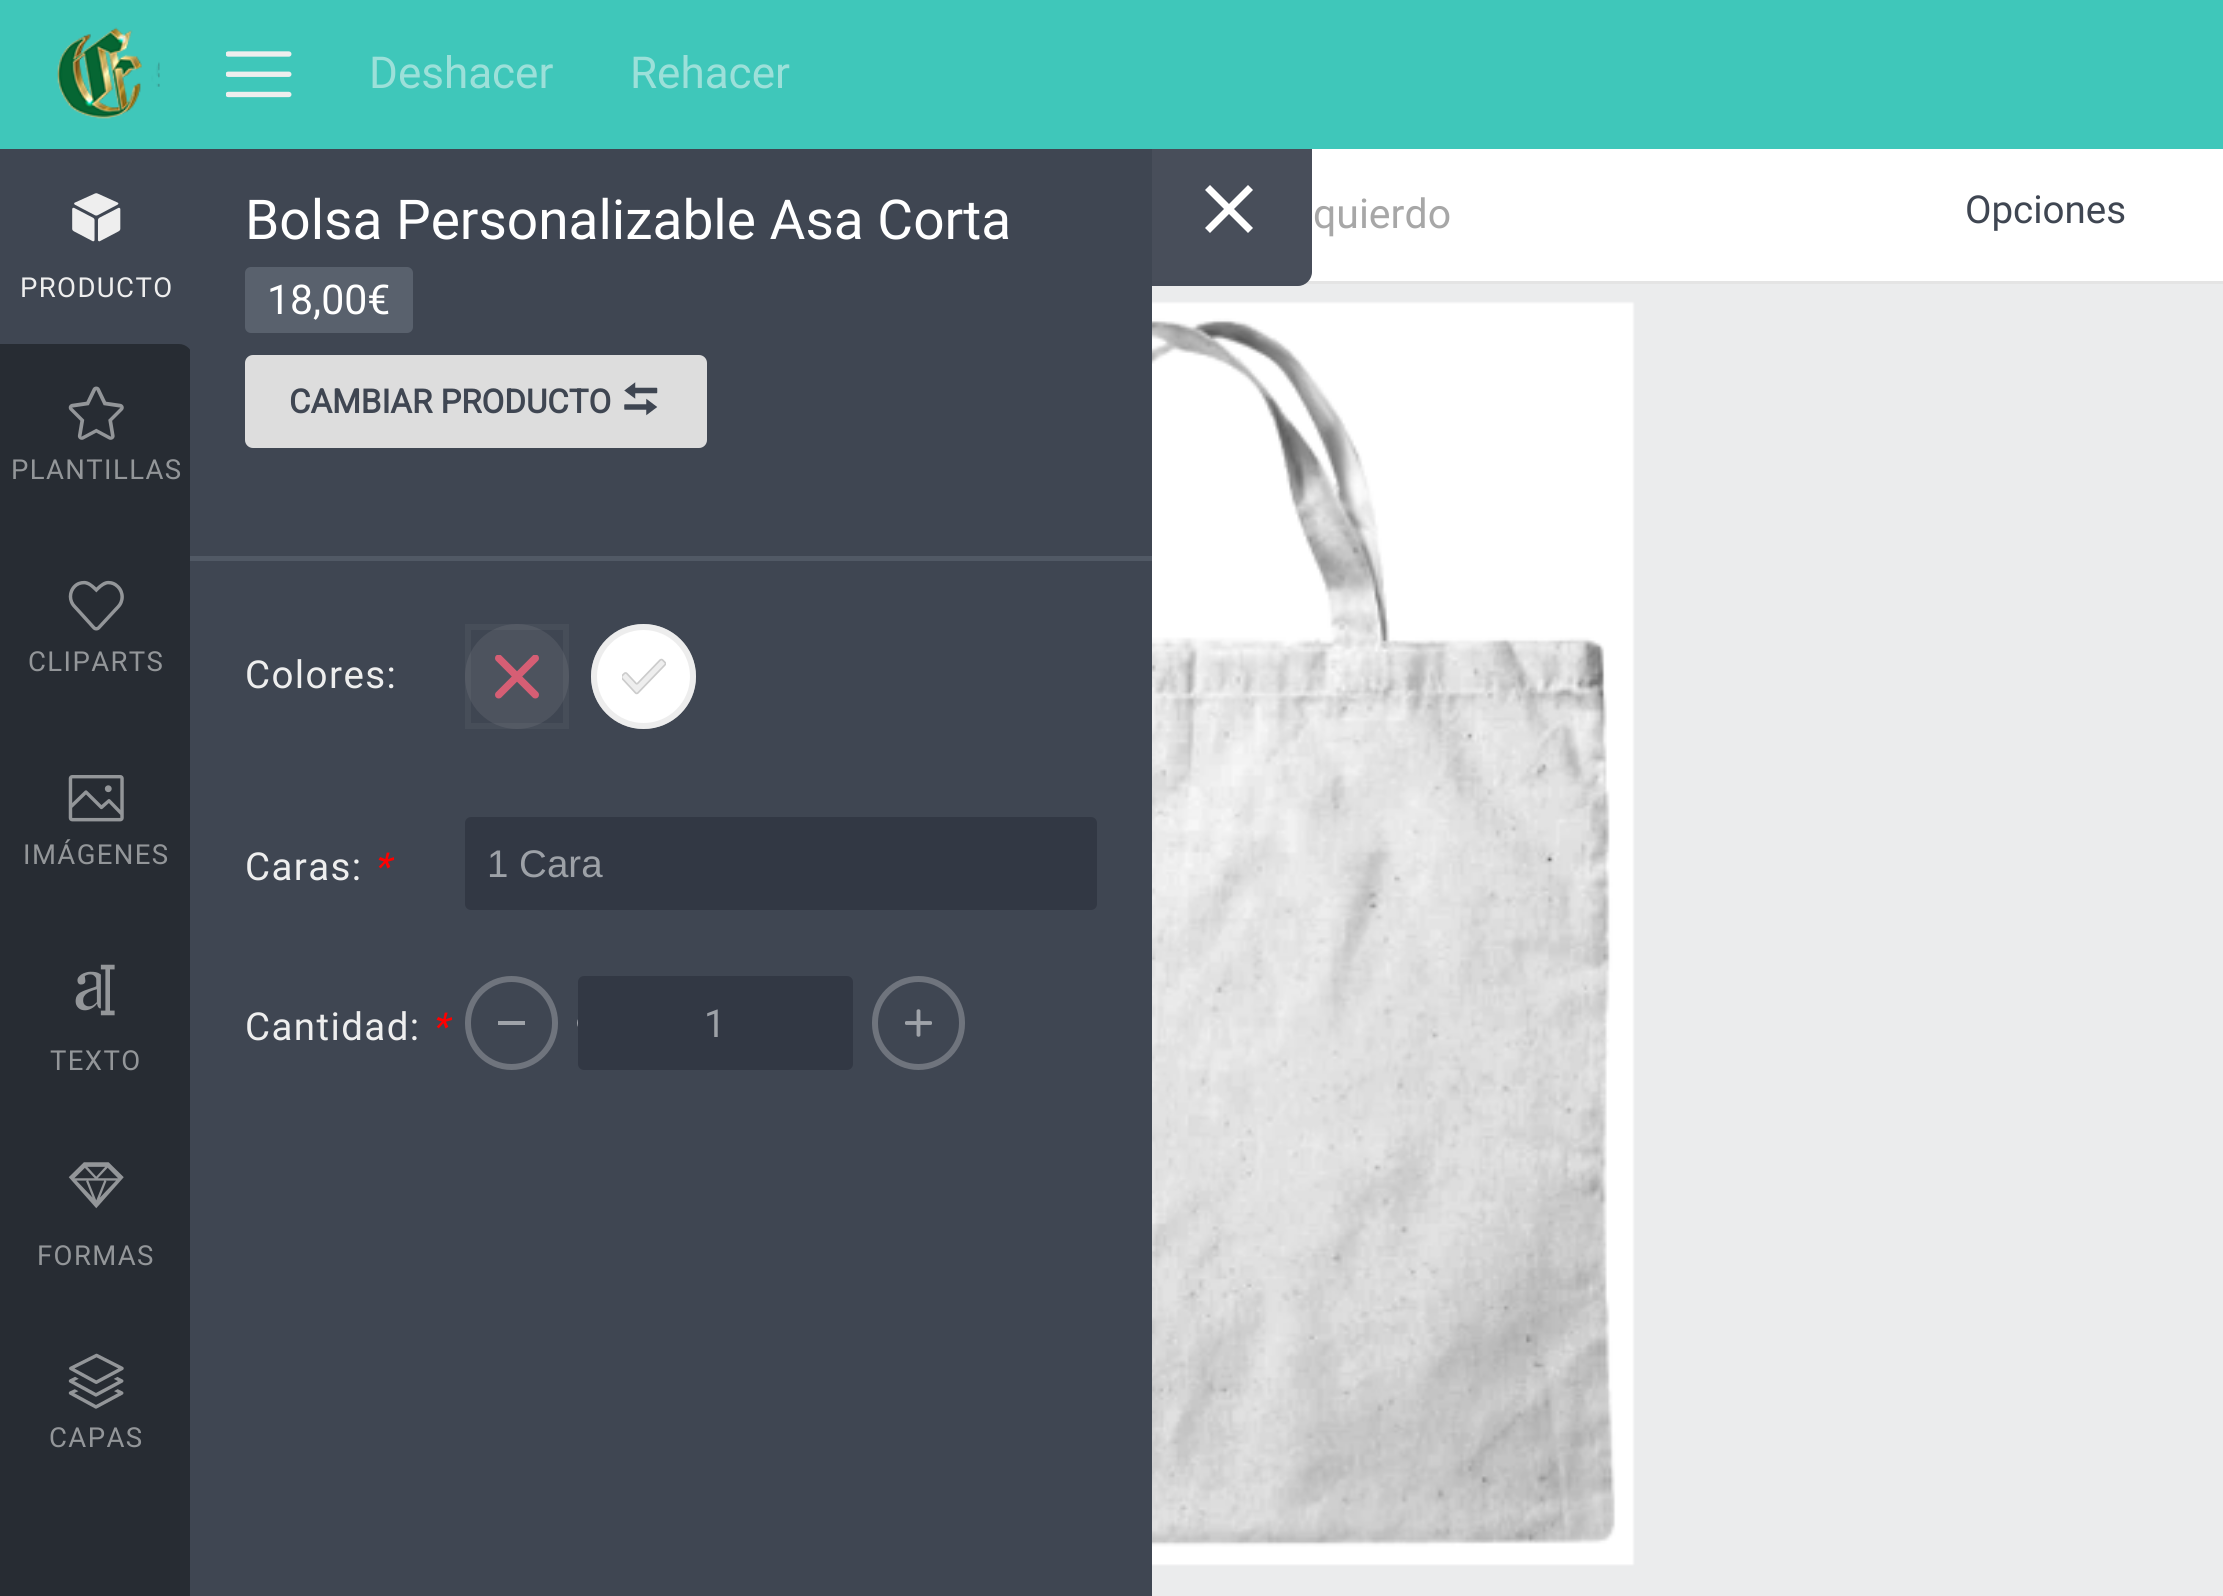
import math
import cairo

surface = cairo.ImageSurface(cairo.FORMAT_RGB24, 2223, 1596)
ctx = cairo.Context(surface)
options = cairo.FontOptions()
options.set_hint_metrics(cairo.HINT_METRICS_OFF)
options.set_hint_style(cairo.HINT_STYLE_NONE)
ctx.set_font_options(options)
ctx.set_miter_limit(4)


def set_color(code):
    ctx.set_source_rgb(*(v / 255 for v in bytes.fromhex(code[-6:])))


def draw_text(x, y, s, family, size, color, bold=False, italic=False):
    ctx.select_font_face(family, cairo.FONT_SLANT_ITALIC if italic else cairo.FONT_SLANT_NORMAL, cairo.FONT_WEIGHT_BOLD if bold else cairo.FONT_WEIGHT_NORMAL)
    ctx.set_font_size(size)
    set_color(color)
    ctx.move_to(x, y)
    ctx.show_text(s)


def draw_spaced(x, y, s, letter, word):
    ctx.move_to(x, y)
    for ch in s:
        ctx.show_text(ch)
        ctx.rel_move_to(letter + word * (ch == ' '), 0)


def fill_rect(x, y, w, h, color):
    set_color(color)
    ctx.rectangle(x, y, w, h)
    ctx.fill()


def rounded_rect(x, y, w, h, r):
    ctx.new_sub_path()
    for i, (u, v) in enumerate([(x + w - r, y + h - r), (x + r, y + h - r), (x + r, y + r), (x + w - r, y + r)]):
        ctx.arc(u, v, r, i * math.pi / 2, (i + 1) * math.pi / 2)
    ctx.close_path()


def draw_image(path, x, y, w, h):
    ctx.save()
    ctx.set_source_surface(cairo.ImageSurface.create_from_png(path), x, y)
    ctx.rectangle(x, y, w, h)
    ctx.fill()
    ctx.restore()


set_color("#ebeced")
ctx.paint()
fill_rect(0, 0, 2223, 149, "#3fc7ba")
draw_image("assets/img1.png", 57, 27, 103, 92)
draw_image("assets/img2.png", 226, 51, 66, 47)
draw_text(369, 88, "Deshacer", "Roboto", 44, "#9ce0d9")
draw_text(630, 88, "Rehacer", "Roboto", 44, "#9ce0d9")
fill_rect(0, 1504, 190, 92, "#272c33")
fill_rect(1152, 149, 1071, 132, "#ffffff")
fill_rect(1152, 281, 1071, 3, "#e4e4e4")
ctx.set_source_rgba(0.247, 0.275, 0.322, 0.95)
ctx.new_path()
ctx.move_to(1147, 149)
ctx.line_to(1312, 149)
ctx.line_to(1312, 272)
ctx.curve_to(1312, 279.5, 1305.5, 286, 1298, 286)
ctx.line_to(1147, 286)
ctx.close_path()
ctx.fill()
set_color("#ffffff")
ctx.new_path()
ctx.move_to(1253, 190)
ctx.line_to(1234, 209)
ctx.line_to(1253, 228)
ctx.line_to(1248, 233)
ctx.line_to(1229, 214)
ctx.line_to(1210, 233)
ctx.line_to(1205, 228)
ctx.line_to(1224, 209)
ctx.line_to(1205, 190)
ctx.line_to(1210, 185)
ctx.line_to(1229, 204)
ctx.line_to(1248, 185)
ctx.close_path()
ctx.fill()
fill_rect(0, 149, 190, 201, "#3f4652")
draw_image("assets/img3.png", 72, 193, 49, 49)
ctx.set_font_size(27.5)
set_color("#eeeeee")
draw_spaced(20, 297, "PRODUCTO", 1.4, 0)
set_color("#272c33")
ctx.new_path()
ctx.move_to(0, 344)
ctx.line_to(179, 344)
ctx.curve_to(186.5, 344, 193, 350.5, 193, 358)
ctx.line_to(193, 536)
ctx.line_to(0, 536)
ctx.close_path()
ctx.fill()
draw_image("assets/img4.png", 68, 386, 56, 54)
set_color("#939699")
draw_spaced(11, 479, "PLANTILLAS", 1.4, 0)
fill_rect(0, 536, 190, 968, "#272c33")
draw_image("assets/img5.png", 68, 580, 56, 51)
set_color("#939699")
draw_spaced(28, 671, "CLIPARTS", 1.4, 0)
draw_image("assets/img6.png", 68, 775, 56, 47)
draw_spaced(23, 864, "IMÁGENES", 1.4, 0)
draw_image("assets/img7.png", 75, 964, 40, 52)
draw_spaced(50, 1070, "TEXTO", 1.4, 0)
draw_image("assets/img8.png", 68, 1162, 56, 47)
draw_spaced(37, 1265, "FORMAS", 1.4, 0)
draw_image("assets/img9.png", 68, 1353, 56, 56)
draw_spaced(49, 1447, "CAPAS", 1.4, 0)
fill_rect(190, 149, 962, 1447, "#3f4652")
draw_text(245, 239, "Bolsa Personalizable Asa Corta", "Roboto", 55, "#ffffff")
set_color("#59616d")
rounded_rect(245, 267, 168, 66, 6)
ctx.fill()
draw_text(267, 314, "18,00€", "Roboto", 41, "#ffffff")
set_color("#dddddd")
rounded_rect(245, 355, 462, 93, 8)
ctx.fill()
draw_text(289, 413, "CAMBIAR PRODUCTO", "Roboto", 33, "#3f4652", bold=True)
draw_image("assets/img10.png", 624, 382, 34, 34)
fill_rect(190, 556, 962, 5, "#515965")
ctx.select_font_face("Roboto")
ctx.set_font_size(38.5)
set_color("#eeeeee")
draw_spaced(245, 688, "Colores:", 1.4, 0)
set_color("#4d535e")
rounded_rect(465, 624, 104, 105, 52)
ctx.fill()
draw_image("assets/img11.png", 495, 655, 44, 44)
ctx.rectangle(468, 627, 98, 99)
ctx.set_source_rgba(0.8, 0.8, 0.8, 0.06)
ctx.set_line_width(6)
ctx.stroke()
set_color("#ffffff")
ctx.arc(643.5, 676.5, 52.5, 0, 2 * math.pi)
ctx.fill()
draw_image("assets/img12.png", 622, 658, 44, 37)
ctx.arc(643.5, 676.5, 49.5, 0, 2 * math.pi)
ctx.set_source_rgba(0.867, 0.867, 0.867, 0.5)
ctx.stroke()
set_color("#eeeeee")
draw_spaced(245, 880, "Caras:", 1.4, 0)
ctx.select_font_face("Roboto", cairo.FONT_SLANT_ITALIC)
set_color("#ff0000")
draw_spaced(373, 880, "*", 1.4, 0)
set_color("#323844")
rounded_rect(465, 817, 632, 93, 6)
ctx.fill()
draw_text(487, 877, "1 Cara", "Liberation Sans", 38.5, "#9da1a7")
ctx.select_font_face("Roboto")
set_color("#eeeeee")
draw_spaced(245, 1040, "Cantidad:", 1.4, 0)
ctx.select_font_face("Roboto", cairo.FONT_SLANT_ITALIC)
set_color("#ff0000")
draw_spaced(431, 1040, "*", 1.4, 0)
rounded_rect(468, 979, 87, 88, 43.5)
set_color("#6f747d")
ctx.stroke()
fill_rect(498, 1021, 27, 4, "#9fa3a9")
set_color("#ffffff")
ctx.new_path()
ctx.move_to(715, 976)
ctx.curve_to(791, 976, 852.5, 997, 852.5, 1023)
ctx.curve_to(852.5, 1049, 791, 1070, 715, 1070)
ctx.curve_to(639, 1070, 577.5, 1049, 577.5, 1023)
ctx.curve_to(577.5, 997, 639, 976, 715, 976)
ctx.close_path()
ctx.fill()
set_color("#323844")
rounded_rect(578, 976, 275, 94, 6)
ctx.fill()
draw_text(704, 1037, "1", "Roboto", 38.5, "#9da1a7")
rounded_rect(875, 979, 87, 88, 43.5)
set_color("#6f747d")
ctx.stroke()
draw_image("assets/img13.png", 905, 1009, 27, 28)
draw_text(1313, 228, "quierdo", "Roboto", 41, "#a7a7a7")
draw_text(1965, 223, "Opciones", "Roboto", 38.5, "#3f4652")
draw_image("assets/img14.png", 1152, 286, 1071, 1310)
surface.write_to_png("output.png")
